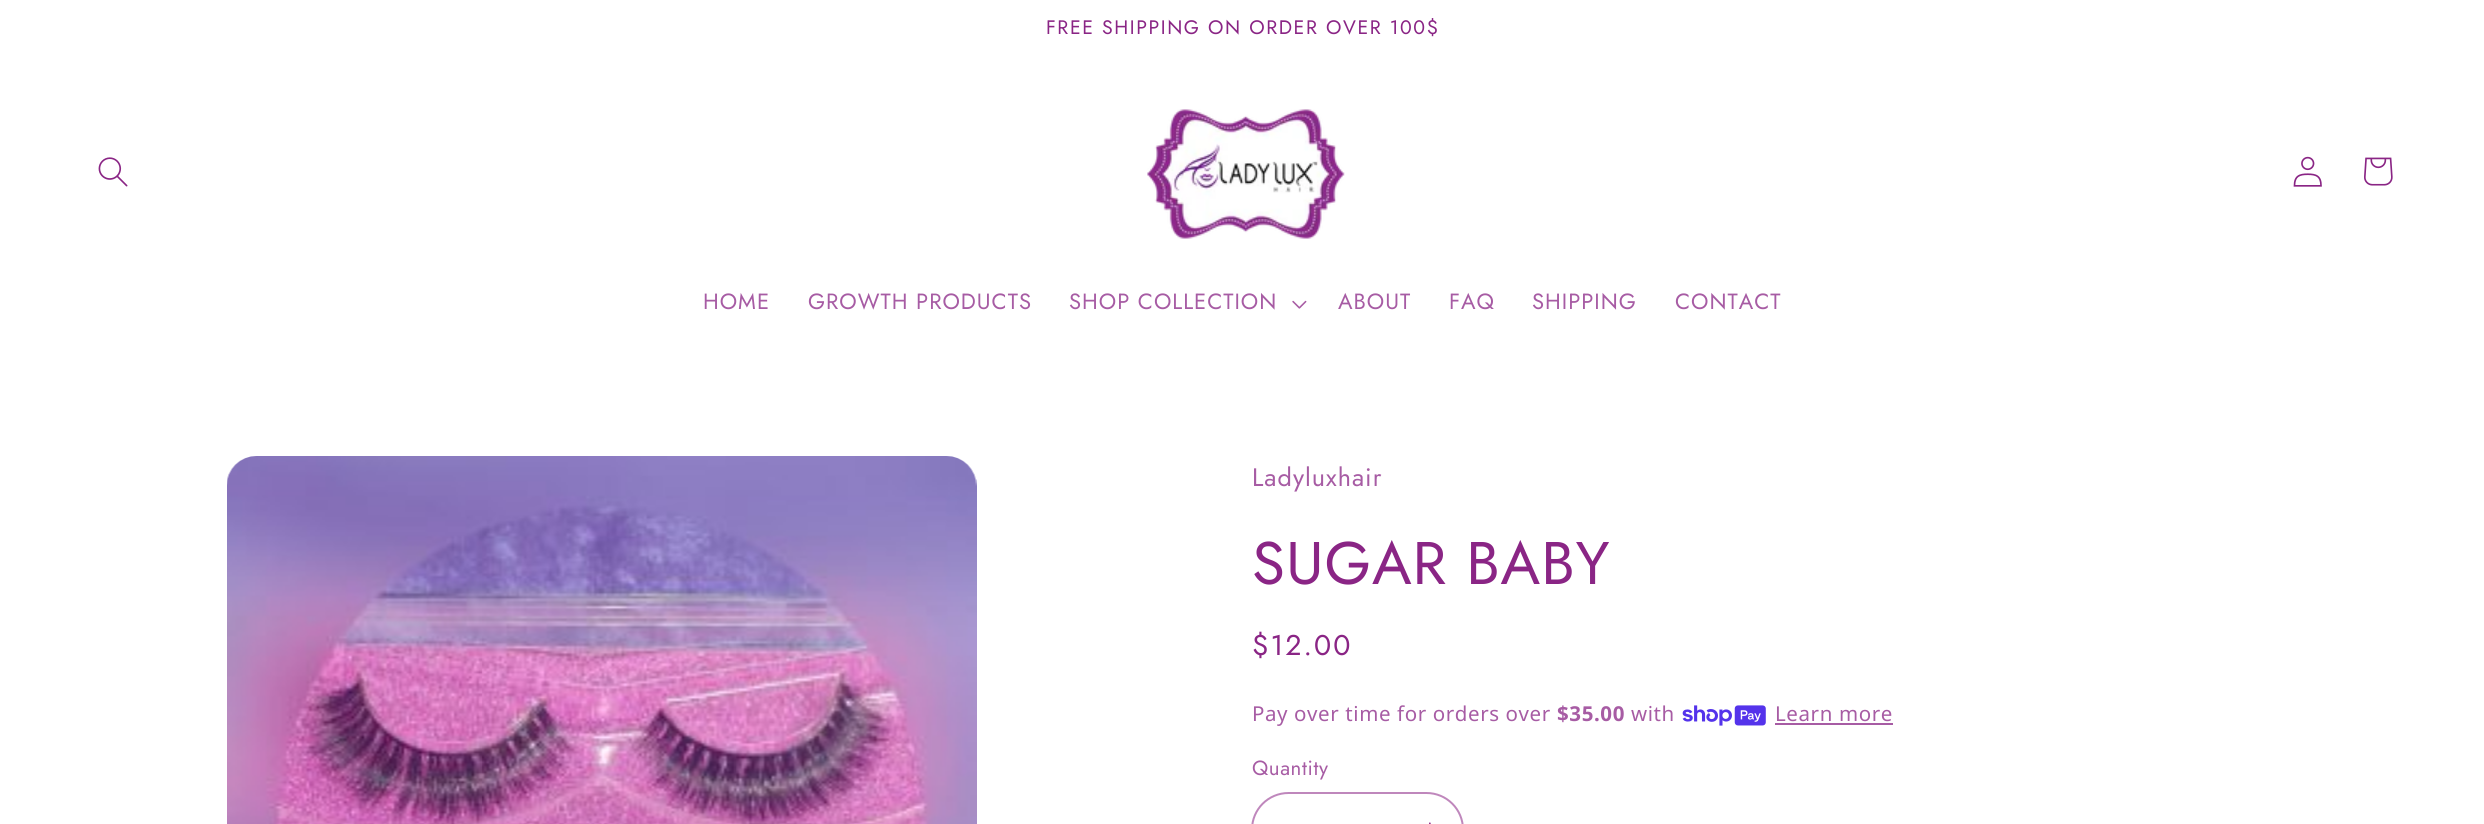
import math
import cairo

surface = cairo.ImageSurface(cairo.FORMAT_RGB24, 2484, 824)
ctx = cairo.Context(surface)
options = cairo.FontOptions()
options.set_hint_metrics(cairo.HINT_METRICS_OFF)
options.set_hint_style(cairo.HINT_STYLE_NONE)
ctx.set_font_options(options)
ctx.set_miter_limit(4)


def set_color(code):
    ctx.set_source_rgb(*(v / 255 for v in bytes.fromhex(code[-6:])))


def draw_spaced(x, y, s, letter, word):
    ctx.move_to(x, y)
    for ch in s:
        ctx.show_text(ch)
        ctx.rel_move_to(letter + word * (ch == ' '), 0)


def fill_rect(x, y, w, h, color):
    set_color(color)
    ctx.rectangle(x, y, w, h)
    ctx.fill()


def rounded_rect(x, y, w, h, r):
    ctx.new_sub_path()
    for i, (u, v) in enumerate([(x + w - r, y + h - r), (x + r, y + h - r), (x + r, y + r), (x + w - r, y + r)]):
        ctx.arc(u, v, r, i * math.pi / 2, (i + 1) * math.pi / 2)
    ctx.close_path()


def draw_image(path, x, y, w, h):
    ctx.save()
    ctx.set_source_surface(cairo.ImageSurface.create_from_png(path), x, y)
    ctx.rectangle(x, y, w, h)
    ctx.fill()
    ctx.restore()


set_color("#ffffff")
ctx.paint()
ctx.select_font_face("Jost")
ctx.set_font_size(19.5)
set_color("#8a2585")
draw_spaced(1046, 34, "FREE SHIPPING ON ORDER OVER 100$", 1.6, 0)
draw_image("assets/img1.png", 98, 157, 30, 30)
draw_image("assets/img2.png", 1147, 109, 198, 130)
draw_image("assets/img3.png", 2293, 156, 29, 31)
draw_image("assets/img4.png", 2364, 157, 29, 29)
ctx.set_font_size(22)
set_color("#a75ca4")
draw_spaced(703, 309, "HOME", 1, 0)
draw_spaced(808, 309, "GROWTH PRODUCTS", 1, 0)
draw_spaced(1069, 309, "SHOP COLLECTION", 1, 0)
draw_image("assets/img5.png", 1292, 300, 15, 9)
draw_spaced(1338, 309, "ABOUT", 1, 0)
draw_spaced(1449, 309, "FAQ", 1, 0)
draw_spaced(1532, 309, "SHIPPING", 1, 0)
draw_spaced(1675, 309, "CONTACT", 1, 0)
draw_image("assets/img6.png", 227, 456, 750, 368)
ctx.set_font_size(25.25)
draw_spaced(1252, 486, "Ladyluxhair", 1, 0)
ctx.set_font_size(60)
set_color("#8a2585")
draw_spaced(1252, 584, "SUGAR BABY", 1, 0)
ctx.set_font_size(28.5)
draw_spaced(1252, 655, "$12.00", 2, 0)
ctx.select_font_face("Noto Sans")
ctx.set_font_size(20.5)
set_color("#a75ca4")
draw_spaced(1252, 721, "Pay over time for orders over", 0.6, 0)
ctx.select_font_face("Noto Sans", cairo.FONT_SLANT_NORMAL, cairo.FONT_WEIGHT_BOLD)
draw_spaced(1557, 721, "$35.00", 0.6, 0)
ctx.select_font_face("Noto Sans")
draw_spaced(1631, 721, "with", 0.6, 0)
draw_image("assets/img7.png", 1682, 705, 84, 21)
draw_spaced(1775, 721, "Learn more", 0.6, 0)
fill_rect(1775, 723, 118, 2, "#a75ca4")
ctx.select_font_face("Jost")
draw_spaced(1252, 775, "Quantity", 0.6, 0)
draw_image("assets/img8.png", 1429, 822, 2, 2)
rounded_rect(1252, 793, 211, 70, 36.5)
set_color("#bf87bc")
ctx.stroke()
surface.write_to_png("output.png")
